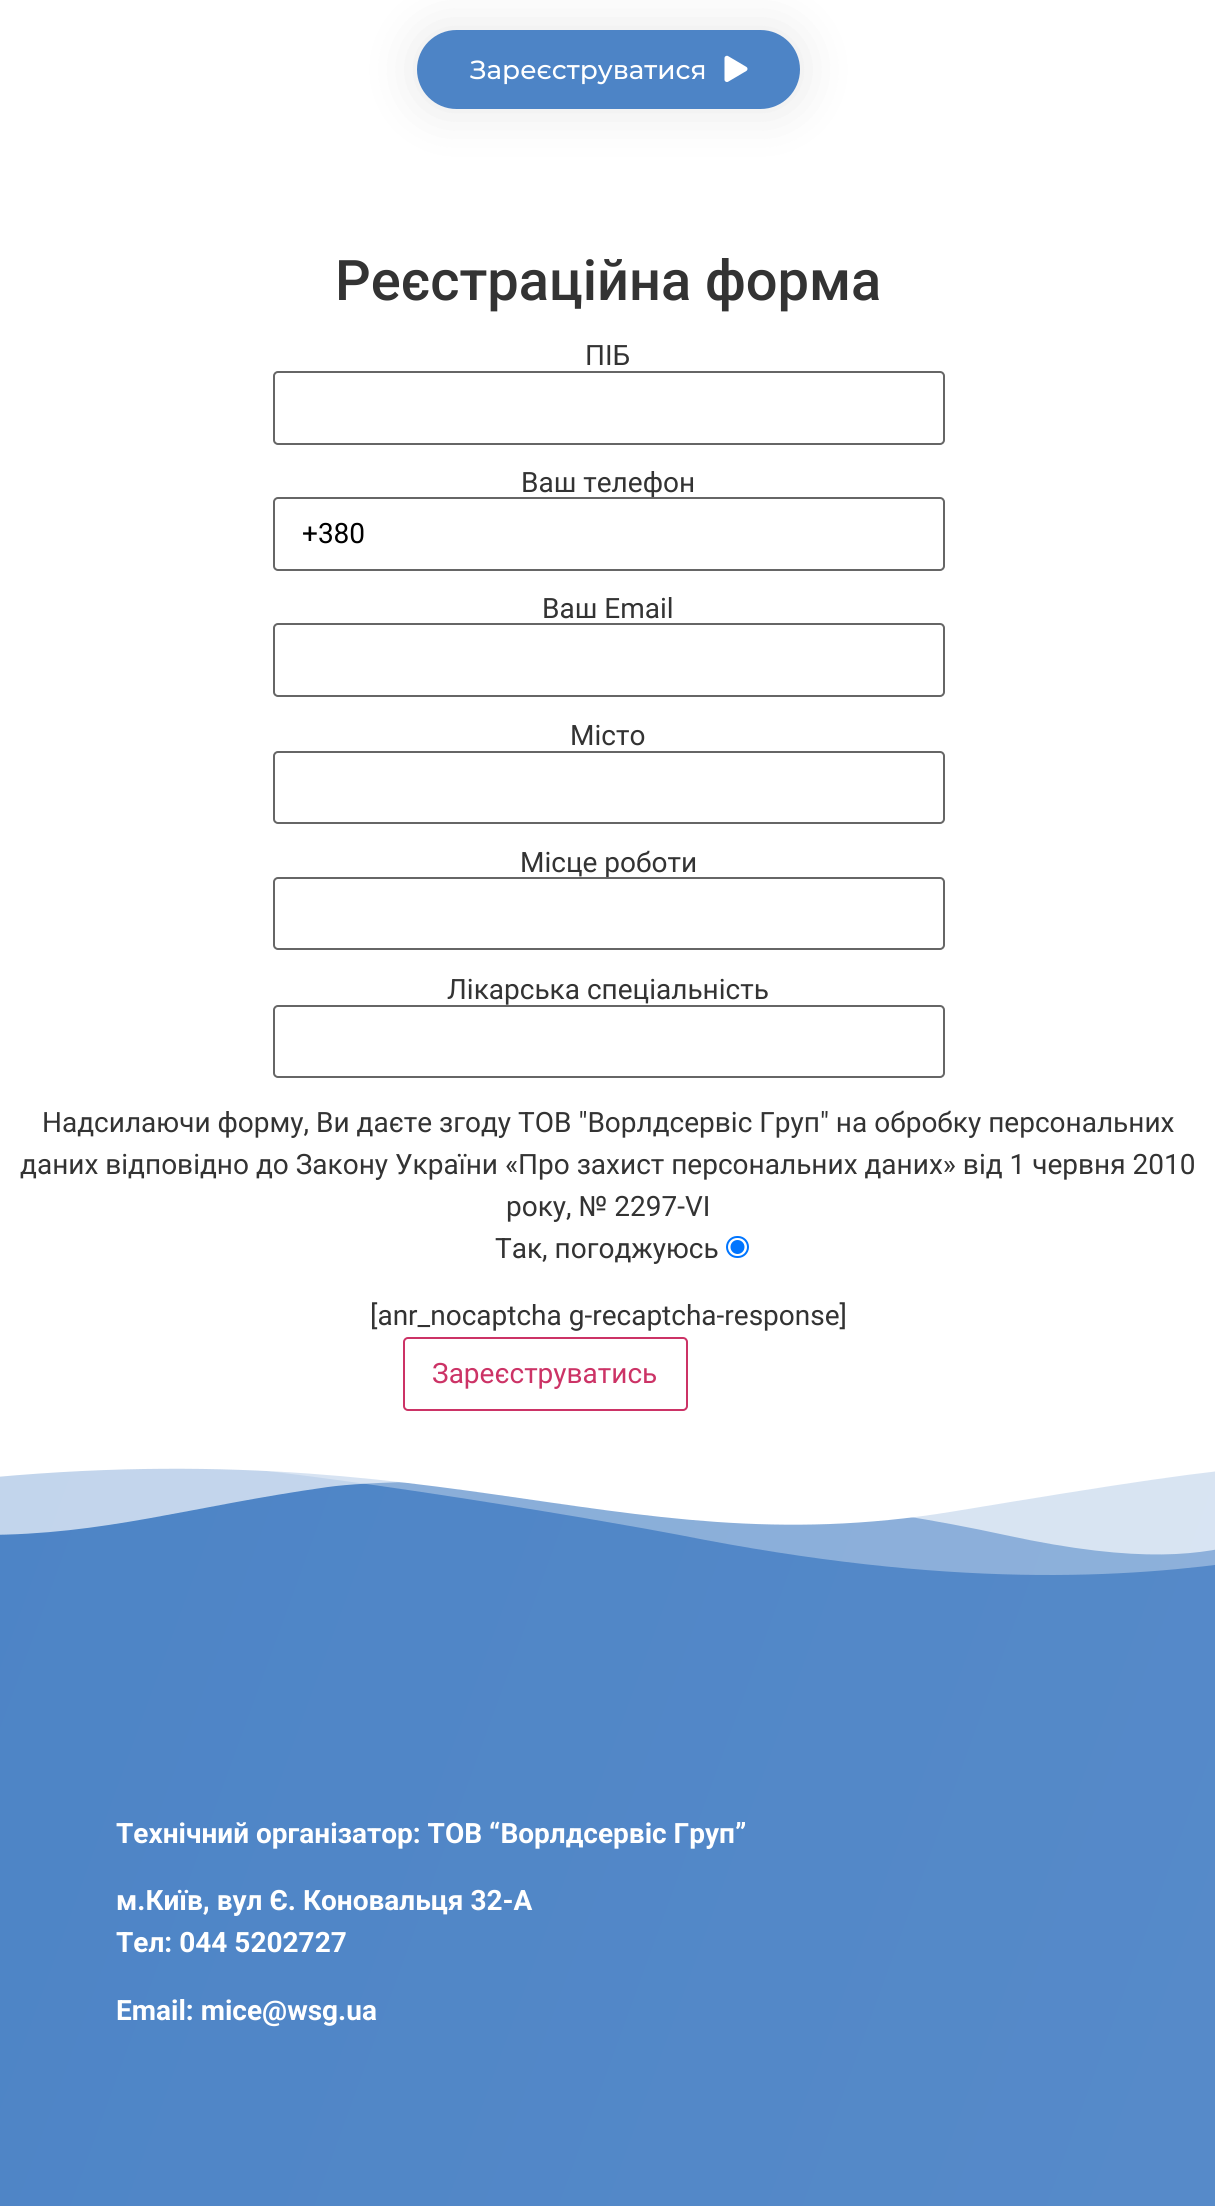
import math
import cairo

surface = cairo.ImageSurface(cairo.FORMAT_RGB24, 1215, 2206)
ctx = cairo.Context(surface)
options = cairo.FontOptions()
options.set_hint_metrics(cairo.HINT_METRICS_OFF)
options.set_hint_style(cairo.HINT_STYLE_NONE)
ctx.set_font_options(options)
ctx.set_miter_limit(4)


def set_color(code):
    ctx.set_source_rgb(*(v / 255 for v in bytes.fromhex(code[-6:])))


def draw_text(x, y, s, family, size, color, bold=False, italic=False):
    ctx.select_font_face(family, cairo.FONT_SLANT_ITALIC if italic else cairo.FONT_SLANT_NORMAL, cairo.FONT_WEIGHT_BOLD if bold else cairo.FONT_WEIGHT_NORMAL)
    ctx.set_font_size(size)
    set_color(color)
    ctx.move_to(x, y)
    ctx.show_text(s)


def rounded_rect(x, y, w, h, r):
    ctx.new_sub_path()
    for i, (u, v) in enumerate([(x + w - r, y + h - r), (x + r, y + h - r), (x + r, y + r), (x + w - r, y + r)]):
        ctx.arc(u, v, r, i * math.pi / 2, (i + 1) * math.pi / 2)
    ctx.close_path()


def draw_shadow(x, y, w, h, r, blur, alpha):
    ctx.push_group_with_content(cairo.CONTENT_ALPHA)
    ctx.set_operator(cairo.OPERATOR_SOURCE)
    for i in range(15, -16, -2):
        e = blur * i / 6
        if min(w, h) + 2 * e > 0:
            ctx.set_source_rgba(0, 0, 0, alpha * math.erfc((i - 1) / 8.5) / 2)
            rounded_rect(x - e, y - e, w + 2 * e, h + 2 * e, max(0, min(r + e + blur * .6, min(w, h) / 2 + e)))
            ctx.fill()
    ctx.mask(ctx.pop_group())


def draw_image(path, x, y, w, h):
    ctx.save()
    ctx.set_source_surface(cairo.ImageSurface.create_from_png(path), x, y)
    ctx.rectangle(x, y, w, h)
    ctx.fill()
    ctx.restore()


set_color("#ffffff")
ctx.paint()
set_color("#000000")
draw_shadow(417, 30, 383, 79, 39.5, 26, 0.1)
set_color("#4d84c6")
rounded_rect(417, 30, 383, 79, 39.5)
ctx.fill()
draw_text(470, 79, "Зареєструватися", "Montserrat Medium", 26.25, "#ffffff")
draw_image("assets/img1.png", 724, 55, 24, 27)
draw_text(335, 300, "Реєстраційна форма", "Roboto Medium", 56, "#333333")
draw_text(585, 365, "ПІБ", "Roboto", 28, "#333333")
rounded_rect(274, 372, 670, 72, 4)
set_color("#666666")
ctx.stroke()
draw_text(521, 492, "Ваш телефон", "Roboto", 28, "#333333")
set_color("#ffffff")
rounded_rect(274, 498, 670, 72, 4)
ctx.fill_preserve()
set_color("#666666")
ctx.stroke()
draw_text(302, 543, "+380", "Roboto", 28, "#000000")
draw_text(542, 618, "Ваш Email", "Roboto", 28, "#333333")
rounded_rect(274, 624, 670, 72, 4)
set_color("#666666")
ctx.stroke()
draw_text(570, 745, "Місто", "Roboto", 28, "#333333")
rounded_rect(274, 752, 670, 71, 4)
set_color("#666666")
ctx.stroke()
draw_text(520, 872, "Місце роботи", "Roboto", 28, "#333333")
set_color("#ffffff")
rounded_rect(274, 878, 670, 71, 4)
ctx.fill_preserve()
set_color("#666666")
ctx.stroke()
draw_text(447, 999, "Лікарська спеціальність", "Roboto", 28, "#333333")
rounded_rect(274, 1006, 670, 71, 4)
set_color("#666666")
ctx.stroke()
draw_text(42, 1132, "Надсилаючи форму, Ви даєте згоду ТОВ \"Ворлдсервіс Груп\" на обробку персональних", "Roboto", 28, "#333333")
draw_text(20, 1174, "даних відповідно до Закону України «Про захист персональних даних» від 1 червня 2010", "Roboto", 28, "#333333")
draw_text(506, 1216, "року, № 2297-VІ", "Roboto", 28, "#333333")
draw_text(495, 1258, "Так, погоджуюсь", "Roboto", 28, "#333333")
rounded_rect(727, 1237, 21, 20, 10)
set_color("#0075ff")
ctx.stroke()
ctx.arc(737.5, 1247, 7, 0, 2 * math.pi)
ctx.fill()
draw_text(370, 1325, "[anr_nocaptcha g-recaptcha-response]", "Roboto", 28, "#333333")
rounded_rect(404, 1338, 283, 72, 4)
set_color("#cc3366")
ctx.stroke()
draw_text(432, 1383, "Зареєструватись", "Roboto", 28, "#cc3366")
gradient = cairo.LinearGradient(-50, 1591, 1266, 2070)
gradient.add_color_stop_rgba(0, 0.302, 0.518, 0.776, 1)
gradient.add_color_stop_rgba(0.96, 0.337, 0.541, 0.788, 1)
ctx.set_source(gradient)
ctx.rectangle(0, 1468, 1215, 738)
ctx.fill()
draw_image("assets/img2.png", 0, 1454, 1215, 121)
draw_text(116, 1843, "Технічний організатор: ТОВ “Ворлдсервіс Груп”", "Roboto", 28, "#ffffff", bold=True)
draw_text(116, 1910, "м.Київ, вул Є. Коновальця 32-А", "Roboto", 28, "#ffffff", bold=True)
draw_text(116, 1952, "Тел: 044 5202727", "Roboto", 28, "#ffffff", bold=True)
draw_text(116, 2020, "Email: mice@wsg.ua", "Roboto", 28, "#ffffff", bold=True)
surface.write_to_png("output.png")
